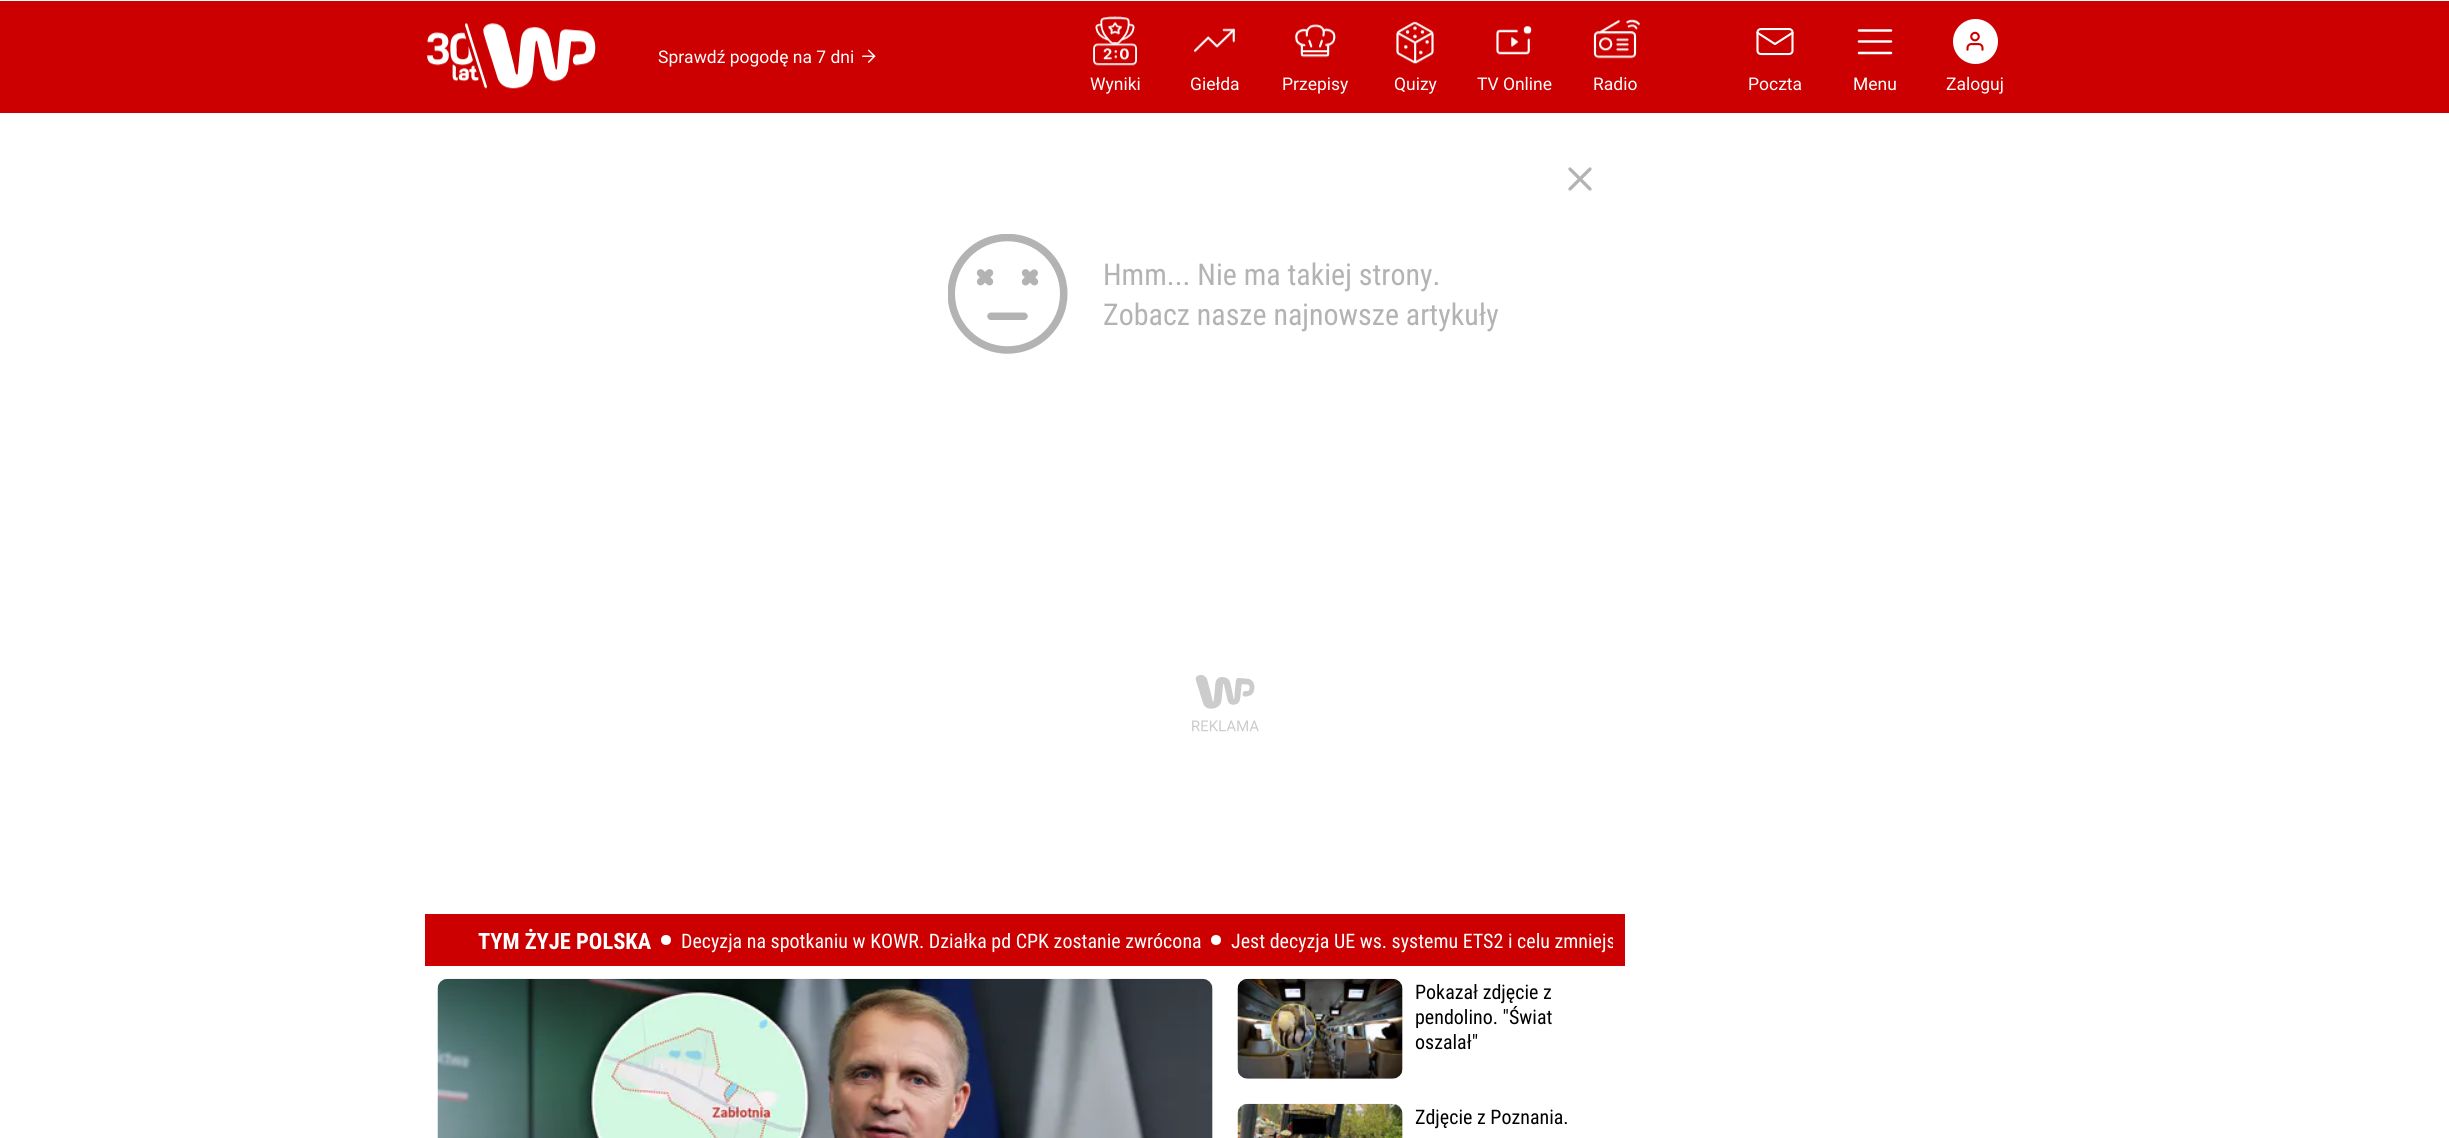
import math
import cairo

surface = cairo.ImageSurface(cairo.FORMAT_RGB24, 2449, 1138)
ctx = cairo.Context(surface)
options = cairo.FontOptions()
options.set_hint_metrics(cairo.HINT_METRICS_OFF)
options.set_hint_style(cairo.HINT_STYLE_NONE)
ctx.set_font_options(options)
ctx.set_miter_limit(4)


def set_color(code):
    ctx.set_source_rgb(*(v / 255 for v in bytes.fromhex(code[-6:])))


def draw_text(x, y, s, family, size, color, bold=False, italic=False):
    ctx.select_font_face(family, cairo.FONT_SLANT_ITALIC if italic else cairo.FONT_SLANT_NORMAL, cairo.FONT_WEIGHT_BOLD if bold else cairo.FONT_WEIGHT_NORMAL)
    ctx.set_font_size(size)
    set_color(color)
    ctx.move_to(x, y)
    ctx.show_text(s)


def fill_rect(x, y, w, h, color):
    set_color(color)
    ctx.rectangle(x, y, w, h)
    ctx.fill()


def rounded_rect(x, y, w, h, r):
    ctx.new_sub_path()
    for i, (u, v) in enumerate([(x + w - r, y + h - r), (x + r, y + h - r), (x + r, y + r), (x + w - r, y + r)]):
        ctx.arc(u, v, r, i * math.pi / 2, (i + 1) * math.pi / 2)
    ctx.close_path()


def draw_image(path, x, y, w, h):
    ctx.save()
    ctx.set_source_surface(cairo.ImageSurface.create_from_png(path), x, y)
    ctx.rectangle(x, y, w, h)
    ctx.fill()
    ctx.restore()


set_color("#ffffff")
ctx.paint()
fill_rect(0, 1, 2449, 112, "#cc0000")
draw_image("assets/img1.png", 427, 23, 169, 66)
draw_text(658, 63, "Sprawdź pogodę na 7 dni", "Roboto", 17.5, "#ffffff")
draw_image("assets/img2.png", 862, 49, 14, 14)
draw_image("assets/img3.png", 1093, 16, 44, 50)
draw_text(1090, 90, "Wyniki", "Roboto", 17.5, "#ffffff")
draw_image("assets/img4.png", 1193, 28, 42, 25)
draw_text(1190, 90, "Giełda", "Roboto", 17.5, "#ffffff")
draw_image("assets/img5.png", 1295, 24, 41, 34)
draw_text(1282, 90, "Przepisy", "Roboto", 17.5, "#ffffff")
draw_image("assets/img6.png", 1396, 21, 38, 43)
draw_text(1394, 90, "Quizy", "Roboto", 17.5, "#ffffff")
draw_image("assets/img7.png", 1496, 26, 36, 29)
draw_text(1477, 90, "TV Online", "Roboto", 17.5, "#ffffff")
draw_image("assets/img8.png", 1593, 19, 47, 40)
draw_text(1593, 90, "Radio", "Roboto", 17.5, "#ffffff")
draw_image("assets/img9.png", 1756, 28, 38, 28)
draw_text(1748, 90, "Poczta", "Roboto", 17.5, "#ffffff")
ctx.new_path()
ctx.move_to(1859, 53)
ctx.line_to(1891, 53)
ctx.move_to(1859, 41.5)
ctx.line_to(1891, 41.5)
ctx.move_to(1859, 30.5)
ctx.line_to(1891, 30.5)
ctx.set_line_width(2.5)
ctx.set_line_cap(cairo.LINE_CAP_ROUND)
ctx.set_line_join(cairo.LINE_JOIN_ROUND)
ctx.stroke()
draw_text(1853, 90, "Menu", "Roboto", 17.5, "#ffffff")
ctx.new_path()
ctx.arc(1975.5, 41.5, 22.5, 0, 2 * math.pi)
ctx.fill()
draw_image("assets/img10.png", 1966, 31, 18, 20)
draw_text(1946, 90, "Zaloguj", "Roboto", 17.5, "#ffffff")
ctx.new_path()
ctx.move_to(1590, 169)
ctx.line_to(1570, 189)
ctx.move_to(1570, 169)
ctx.line_to(1590, 189)
set_color("#b3b3b3")
ctx.set_line_width(3.3)
ctx.stroke()
draw_image("assets/img11.png", 948, 234, 120, 120)
draw_text(1103, 285, "Hmm... Nie ma takiej strony.", "Roboto Condensed", 30, "#b3b3b3")
draw_text(1103, 325, "Zobacz nasze najnowsze artykuły", "Roboto Condensed", 30, "#b3b3b3")
draw_image("assets/img12.png", 1192, 675, 67, 57)
fill_rect(425, 914, 1200, 52, "#cc0000")
draw_text(478, 949, "TYM ŻYJE POLSKA", "Roboto Condensed", 22.5, "#ffffff", bold=True)
ctx.new_path()
ctx.arc(666, 940, 5, 0, 2 * math.pi)
ctx.fill()
draw_text(681, 948, "Decyzja na spotkaniu w KOWR. Działka pd CPK zostanie zwrócona", "Roboto Condensed", 20, "#ffffff")
ctx.new_path()
ctx.arc(1216, 940, 5, 0, 2 * math.pi)
ctx.fill()
ctx.save()
ctx.rectangle(438, 923, 1175, 35)
ctx.clip()
draw_text(1231, 948, "Jest decyzja UE ws. systemu ETS2 i celu zmniejs", "Roboto Condensed", 20, "#ffffff")
ctx.restore()
set_color("#efefef")
rounded_rect(438, 979, 775, 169, 10)
ctx.fill()
draw_image("assets/img13.png", 437, 978, 776, 160)
rounded_rect(1238, 979, 165, 100, 10)
ctx.fill()
draw_image("assets/img14.png", 1237, 978, 166, 101)
draw_text(1415, 999, "Pokazał zdjęcie z", "Roboto Condensed", 20, "#000000")
draw_text(1415, 1024, "pendolino. \"Świat", "Roboto Condensed", 20, "#000000")
draw_text(1415, 1049, "oszalał\"", "Roboto Condensed", 20, "#000000")
set_color("#efefef")
rounded_rect(1238, 1104, 165, 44, 10)
ctx.fill()
draw_image("assets/img15.png", 1237, 1103, 166, 35)
draw_text(1415, 1124, "Zdjęcie z Poznania.", "Roboto Condensed", 20, "#000000")
surface.write_to_png("output.png")
